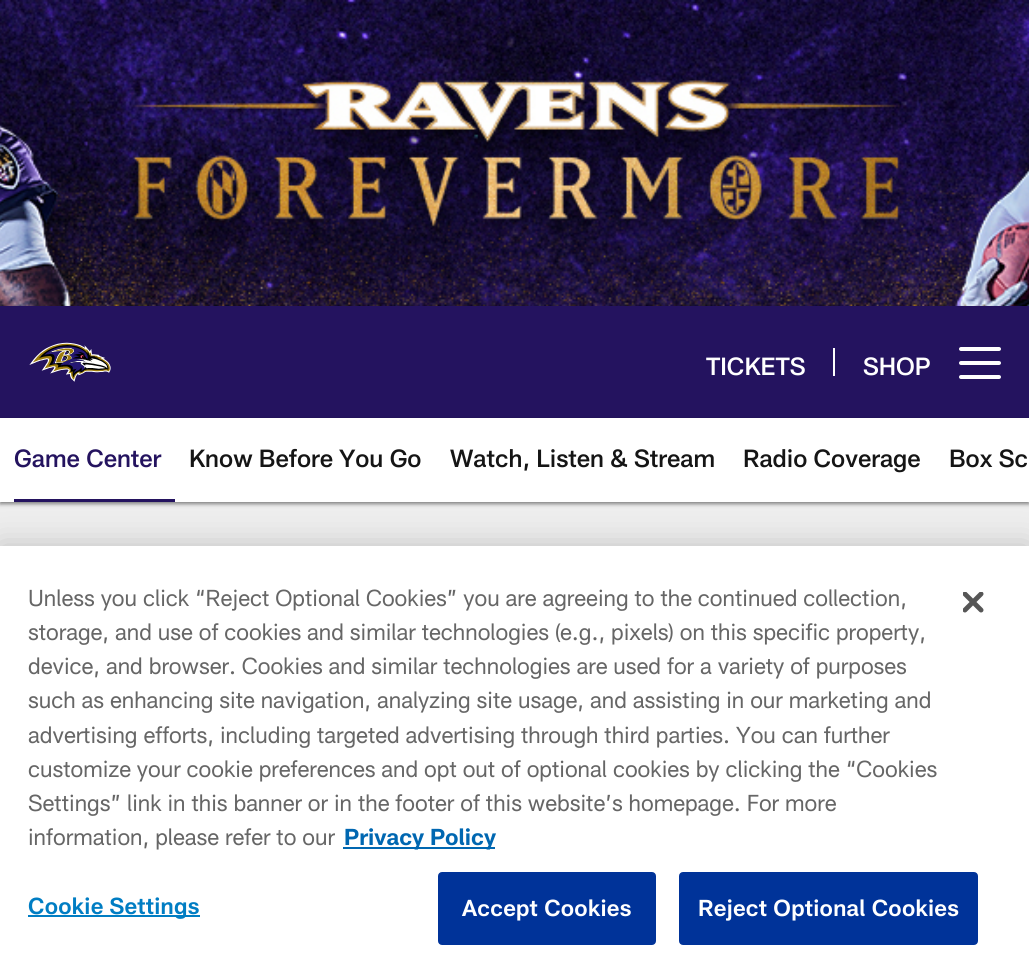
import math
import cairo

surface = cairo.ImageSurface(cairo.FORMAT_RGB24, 1029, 977)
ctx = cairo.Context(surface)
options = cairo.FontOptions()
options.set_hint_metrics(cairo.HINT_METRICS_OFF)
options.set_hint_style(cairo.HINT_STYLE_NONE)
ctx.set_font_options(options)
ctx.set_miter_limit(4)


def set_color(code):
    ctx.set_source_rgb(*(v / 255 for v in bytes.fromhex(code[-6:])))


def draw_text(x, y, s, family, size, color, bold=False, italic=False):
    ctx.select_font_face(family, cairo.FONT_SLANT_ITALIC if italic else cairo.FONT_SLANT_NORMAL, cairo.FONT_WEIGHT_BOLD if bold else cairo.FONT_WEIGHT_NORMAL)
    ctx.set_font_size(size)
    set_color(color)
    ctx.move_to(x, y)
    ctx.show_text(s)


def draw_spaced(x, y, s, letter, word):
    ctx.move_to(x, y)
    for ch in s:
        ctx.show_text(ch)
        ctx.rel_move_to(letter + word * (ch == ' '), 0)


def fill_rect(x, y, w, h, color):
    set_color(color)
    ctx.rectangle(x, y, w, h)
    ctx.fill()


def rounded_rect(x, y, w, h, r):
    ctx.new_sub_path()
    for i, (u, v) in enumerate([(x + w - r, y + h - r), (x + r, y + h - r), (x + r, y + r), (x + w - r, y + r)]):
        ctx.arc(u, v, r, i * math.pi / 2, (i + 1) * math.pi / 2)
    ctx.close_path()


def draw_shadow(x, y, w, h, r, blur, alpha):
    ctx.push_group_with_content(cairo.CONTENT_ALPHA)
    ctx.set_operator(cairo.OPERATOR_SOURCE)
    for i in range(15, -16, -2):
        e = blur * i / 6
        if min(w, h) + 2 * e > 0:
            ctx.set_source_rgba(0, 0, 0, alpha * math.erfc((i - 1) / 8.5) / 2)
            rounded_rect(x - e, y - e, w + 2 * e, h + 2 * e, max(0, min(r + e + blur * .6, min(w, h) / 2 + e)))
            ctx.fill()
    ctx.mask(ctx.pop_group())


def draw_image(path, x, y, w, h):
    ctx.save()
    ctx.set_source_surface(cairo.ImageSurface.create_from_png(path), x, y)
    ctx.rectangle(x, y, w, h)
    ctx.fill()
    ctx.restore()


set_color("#eeeeee")
ctx.paint()
draw_image("assets/img1.png", 0, 0, 1029, 306)
set_color("#000000")
draw_shadow(0, 308, 1029, 112, 0, 2, 0.47)
fill_rect(0, 306, 1029, 112, "#24135f")
draw_image("assets/img2.png", 29, 342, 82, 40)
draw_text(706, 375, "TICKETS", "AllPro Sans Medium", 24.5, "#ffffff")
fill_rect(833, 348, 2, 28, "#ffffff")
draw_text(863, 375, "SHOP", "AllPro Sans Medium", 24.5, "#ffffff")
rounded_rect(959, 361, 42, 4, 2)
ctx.fill()
rounded_rect(959, 347, 42, 4, 2)
ctx.fill()
rounded_rect(959, 375, 42, 4, 2)
ctx.fill()
set_color("#000000")
draw_shadow(0, 420, 1029, 84, 0, 2, 0.47)
fill_rect(0, 418, 1029, 84, "#ffffff")
fill_rect(14, 499, 161, 3, "#24135f")
draw_text(14, 467, "Game Center", "AllPro Sans Medium", 24.5, "#24135f")
draw_text(189, 467, "Know Before You Go", "AllPro Sans Medium", 24.5, "#151515")
draw_text(450, 467, "Watch, Listen & Stream", "AllPro Sans Medium", 24.5, "#151515")
draw_text(743, 467, "Radio Coverage", "AllPro Sans Medium", 24.5, "#151515")
draw_text(949, 467, "Box Sc", "AllPro Sans Medium", 24.5, "#151515")
set_color("#000000")
draw_shadow(0, 546, 1029, 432, 0, 16, 0.2)
fill_rect(0, 546, 1029, 431, "#ffffff")
draw_text(28, 606, "Unless you click “Reject Optional Cookies” you are agreeing to the continued collection,", "AllPro Sans", 22.75, "#666666")
draw_text(28, 640, "storage, and use of cookies and similar technologies (e.g., pixels) on this specific property,", "AllPro Sans", 22.75, "#666666")
draw_text(28, 674, "device, and browser. Cookies and similar technologies are used for a variety of purposes", "AllPro Sans", 22.75, "#666666")
draw_text(28, 708, "such as enhancing site navigation, analyzing site usage, and assisting in our marketing and", "AllPro Sans", 22.75, "#666666")
draw_text(28, 743, "advertising efforts, including targeted advertising through third parties. You can further", "AllPro Sans", 22.75, "#666666")
draw_text(28, 777, "customize your cookie preferences and opt out of optional cookies by clicking the “Cookies", "AllPro Sans", 22.75, "#666666")
draw_text(28, 811, "Settings” link in this banner or in the footer of this website’s homepage. For more", "AllPro Sans", 22.75, "#666666")
draw_text(28, 845, "information, please refer to our", "AllPro Sans", 22.75, "#666666")
fill_rect(343, 847, 152, 2, "#0067b1")
draw_text(344, 845, "Privacy Policy", "AllPro Sans", 22.75, "#0067b1", bold=True)
fill_rect(28, 915, 172, 2, "#007dc3")
ctx.select_font_face("AllPro Sans SemiBold")
draw_spaced(28, 914, "Cookie Settings", 0.25, 0)
set_color("#003399")
rounded_rect(439, 873, 216, 71, 3)
ctx.fill_preserve()
ctx.stroke()
set_color("#ffffff")
draw_spaced(462, 916, "Accept Cookies", 0.25, 0)
set_color("#003399")
rounded_rect(680, 873, 297, 71, 3)
ctx.fill_preserve()
ctx.stroke()
set_color("#ffffff")
draw_spaced(698, 916, "Reject Optional Cookies", 0.25, 0)
draw_image("assets/img3.png", 963, 592, 21, 21)
surface.write_to_png("output.png")
